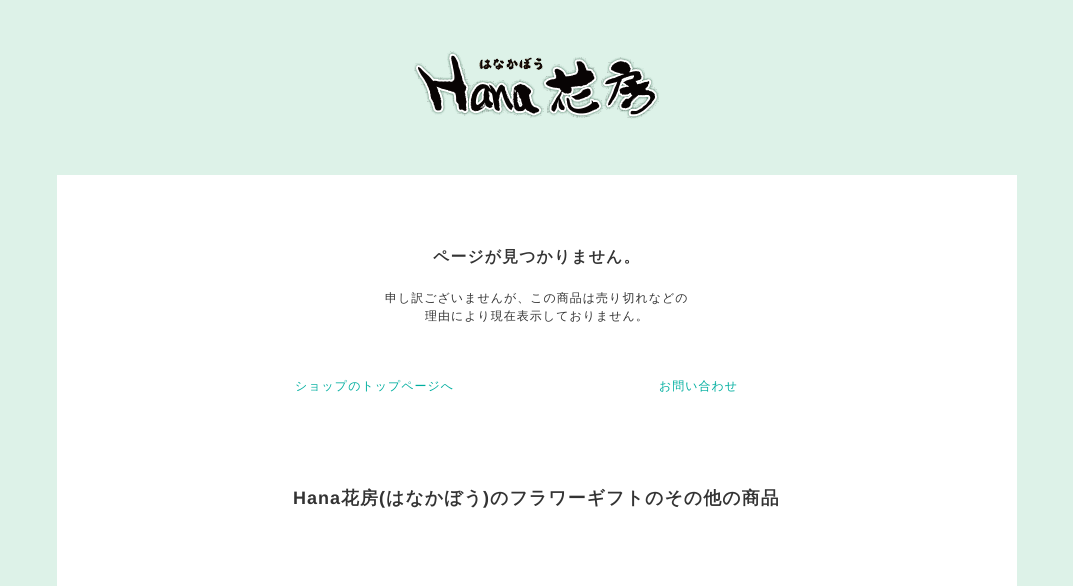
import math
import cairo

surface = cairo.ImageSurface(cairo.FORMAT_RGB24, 1073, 586)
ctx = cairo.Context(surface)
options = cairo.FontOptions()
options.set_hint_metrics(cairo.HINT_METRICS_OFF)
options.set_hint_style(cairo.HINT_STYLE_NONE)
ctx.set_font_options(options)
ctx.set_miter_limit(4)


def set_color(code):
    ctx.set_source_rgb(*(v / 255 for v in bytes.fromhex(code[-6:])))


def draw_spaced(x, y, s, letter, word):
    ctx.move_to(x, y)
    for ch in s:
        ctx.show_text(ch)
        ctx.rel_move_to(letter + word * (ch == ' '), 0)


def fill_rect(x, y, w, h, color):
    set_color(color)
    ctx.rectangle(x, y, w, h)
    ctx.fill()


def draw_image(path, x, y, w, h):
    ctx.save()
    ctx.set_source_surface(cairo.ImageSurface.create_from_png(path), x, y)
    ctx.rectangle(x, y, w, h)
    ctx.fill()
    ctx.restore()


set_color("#ddf2e8")
ctx.paint()
draw_image("assets/img1.png", 414, 51, 245, 68)
fill_rect(57, 175, 960, 411, "#ffffff")
ctx.select_font_face("WenQuanYi Zen Hei", cairo.FONT_SLANT_NORMAL, cairo.FONT_WEIGHT_BOLD)
ctx.set_font_size(16)
set_color("#333333")
draw_spaced(433, 262, "ページが見つかりません。", 1, 0)
ctx.select_font_face("WenQuanYi Zen Hei Medium")
ctx.set_font_size(12)
draw_spaced(385, 302, "申し訳ございませんが、この商品は売り切れなどの", 1, 0)
draw_spaced(425, 320, "理由により現在表示しておりません。", 1, 0)
set_color("#00ae9f")
draw_spaced(295, 390, "ショップのトップページへ", 1, 0)
draw_spaced(659, 390, "お問い合わせ", 1, 0)
ctx.select_font_face("Liberation Sans", cairo.FONT_SLANT_NORMAL, cairo.FONT_WEIGHT_BOLD)
ctx.set_font_size(18)
set_color("#333333")
draw_spaced(293, 504, "Hana", 1, 0)
ctx.select_font_face("WenQuanYi Zen Hei", cairo.FONT_SLANT_NORMAL, cairo.FONT_WEIGHT_BOLD)
draw_spaced(341, 504, "花房", 1, 0)
ctx.select_font_face("Liberation Sans", cairo.FONT_SLANT_NORMAL, cairo.FONT_WEIGHT_BOLD)
draw_spaced(379, 504, "(", 1, 0)
ctx.select_font_face("WenQuanYi Zen Hei", cairo.FONT_SLANT_NORMAL, cairo.FONT_WEIGHT_BOLD)
draw_spaced(386, 504, "はなかぼう", 1, 0)
ctx.select_font_face("Liberation Sans", cairo.FONT_SLANT_NORMAL, cairo.FONT_WEIGHT_BOLD)
draw_spaced(483, 504, ")", 1, 0)
ctx.select_font_face("WenQuanYi Zen Hei", cairo.FONT_SLANT_NORMAL, cairo.FONT_WEIGHT_BOLD)
draw_spaced(490, 504, "のフラワーギフトのその他の商品", 1, 0)
surface.write_to_png("output.png")
